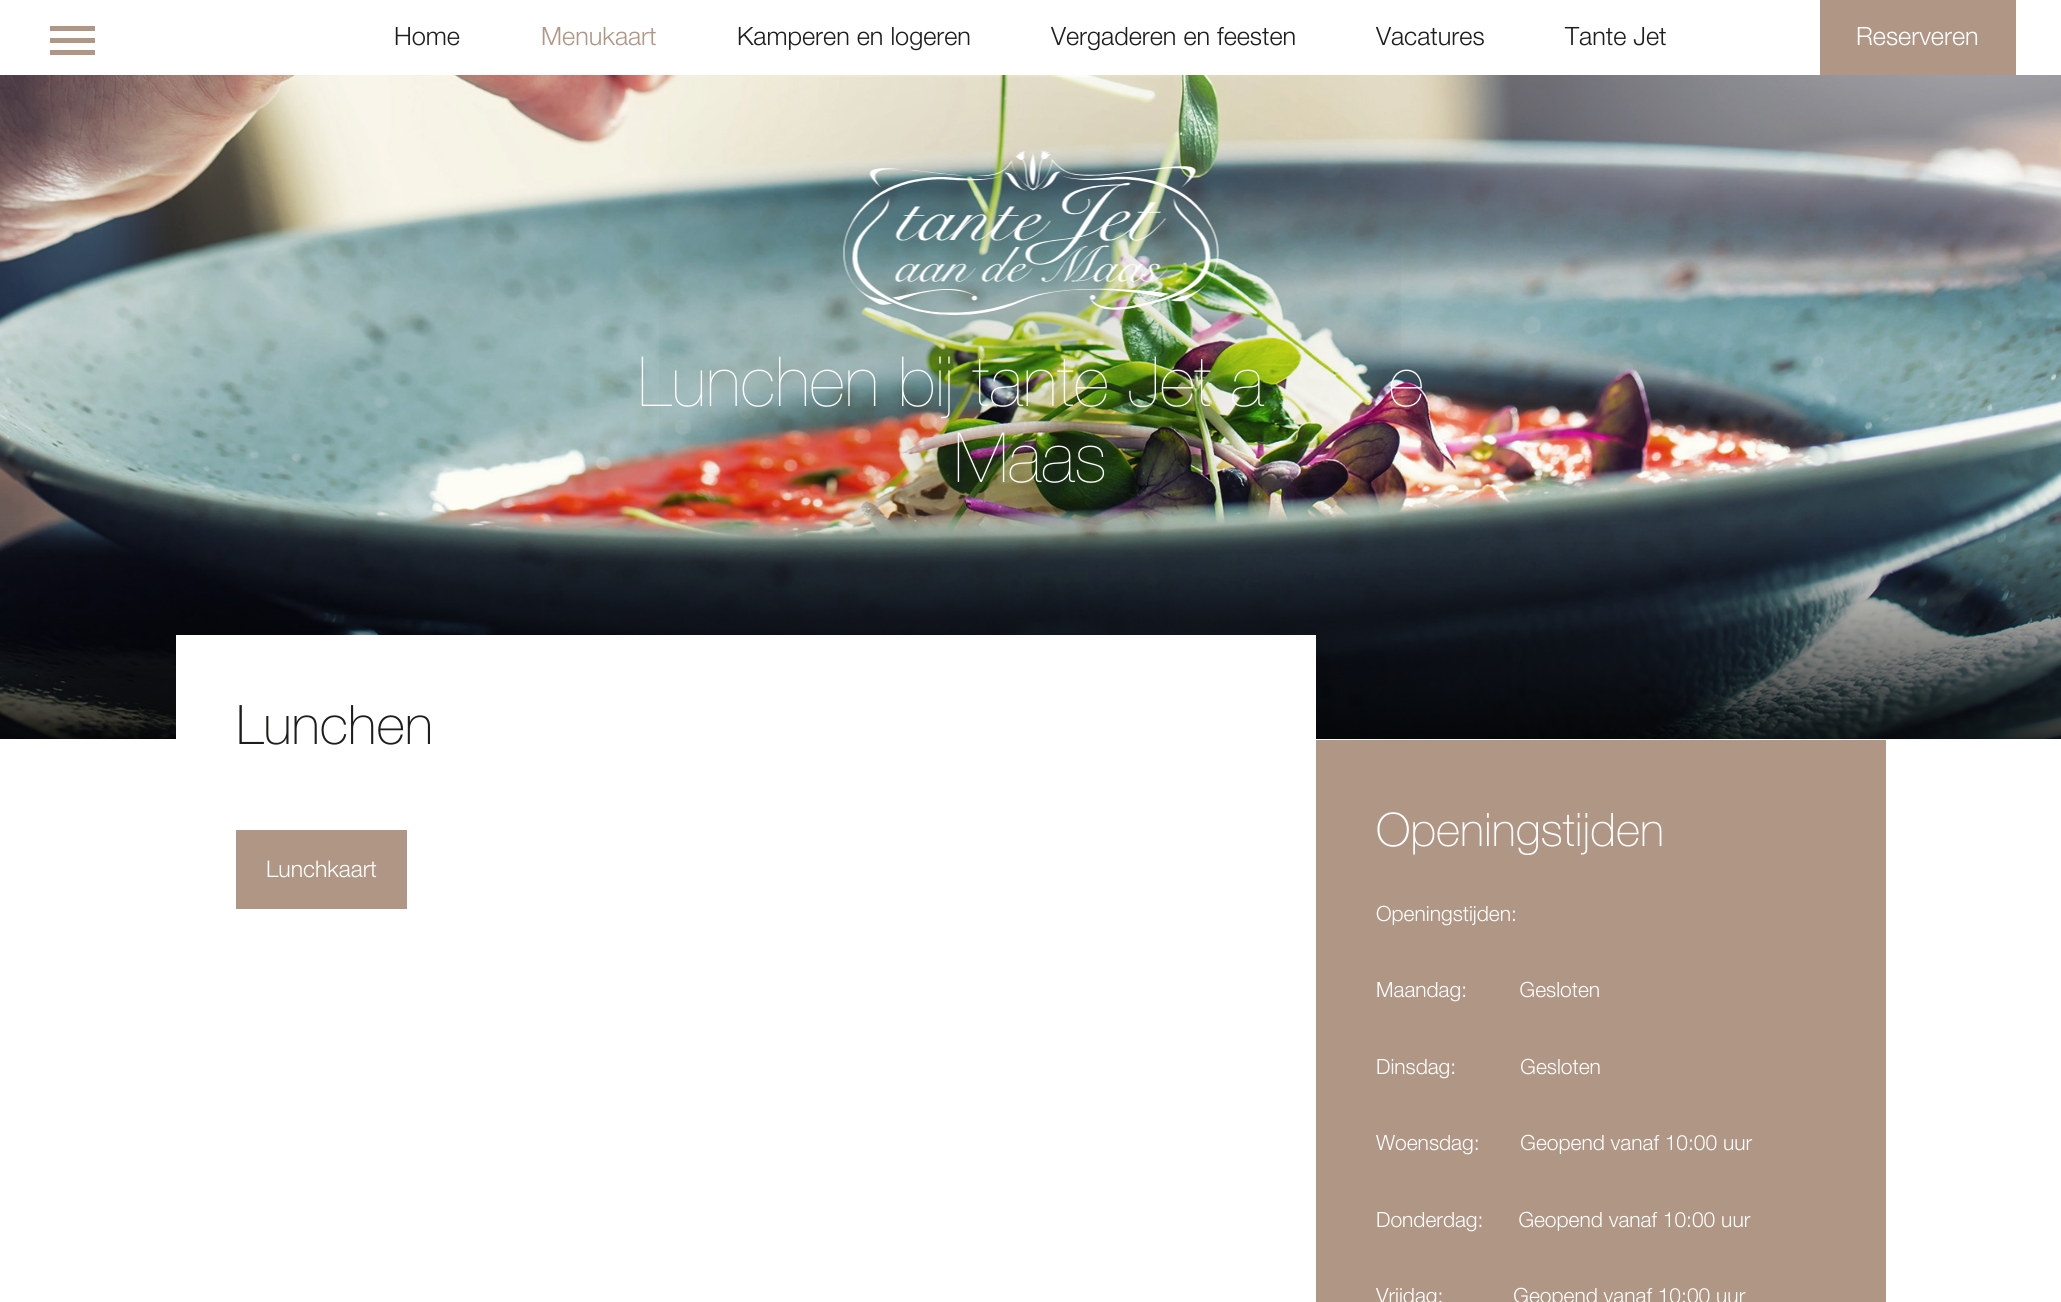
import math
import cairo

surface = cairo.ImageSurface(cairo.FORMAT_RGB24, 2061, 1302)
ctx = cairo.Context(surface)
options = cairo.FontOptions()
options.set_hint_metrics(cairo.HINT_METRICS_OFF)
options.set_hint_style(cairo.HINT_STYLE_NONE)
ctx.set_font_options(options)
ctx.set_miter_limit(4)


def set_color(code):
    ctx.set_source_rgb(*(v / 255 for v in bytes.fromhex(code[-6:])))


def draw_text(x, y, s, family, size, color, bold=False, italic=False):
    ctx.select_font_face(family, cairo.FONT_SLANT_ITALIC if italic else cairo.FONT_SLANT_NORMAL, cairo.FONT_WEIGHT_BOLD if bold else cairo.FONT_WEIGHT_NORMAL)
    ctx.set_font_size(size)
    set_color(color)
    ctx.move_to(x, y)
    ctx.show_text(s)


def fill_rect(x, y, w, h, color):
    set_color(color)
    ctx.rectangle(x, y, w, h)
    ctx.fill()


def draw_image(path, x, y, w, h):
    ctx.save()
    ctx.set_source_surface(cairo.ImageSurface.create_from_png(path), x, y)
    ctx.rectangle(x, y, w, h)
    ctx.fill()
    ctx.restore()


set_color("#ffffff")
ctx.paint()
fill_rect(50, 38, 45, 5, "#b09685")
fill_rect(50, 26, 45, 5, "#b09685")
fill_rect(50, 50, 45, 5, "#b09685")
draw_text(394, 45, "Home", "Helvetica neue Light", 25.25, "#1d1d1b")
draw_text(541, 45, "Menukaart", "Helvetica neue Light", 25.25, "#b09685")
draw_text(737, 45, "Kamperen en logeren", "Helvetica neue Light", 25.25, "#1d1d1b")
draw_text(1051, 45, "Vergaderen en feesten", "Helvetica neue Light", 25.25, "#1d1d1b")
draw_text(1376, 45, "Vacatures", "Helvetica neue Light", 25.25, "#1d1d1b")
draw_text(1565, 45, "Tante Jet", "Helvetica neue Light", 25.25, "#1d1d1b")
fill_rect(1820, 0, 196, 75, "#b09685")
draw_text(1856, 45, "Reserveren", "Helvetica neue Light", 25.25, "#ffffff")
draw_image("assets/img1.png", 0, 75, 2061, 664)
gradient = cairo.RadialGradient(0, 0, 0, 0, 0, 1)
gradient.set_matrix(cairo.Matrix(1 / 676, 0, 0, 1 / 489, -1 * 1030 / 676, -1 * 346 / 489))
gradient.add_color_stop_rgba(0, 0, 0, 0, 0.1)
gradient.add_color_stop_rgba(0.7, 0, 0, 0, 0)
gradient.add_color_stop_rgba(1, 0, 0, 0, 0)
ctx.set_source(gradient)
ctx.rectangle(659, 77, 742, 477)
ctx.fill()
draw_image("assets/img2.png", 843, 150, 376, 165)
draw_text(638, 406, "Lunchen bij tante Jet a", "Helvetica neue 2 Light", 69.25, "#ffffff")
draw_text(1389, 406, "e", "Helvetica neue 2 Light", 69.25, "#ffffff")
draw_text(954, 482, "Maas", "Helvetica neue 2 Light", 69.25, "#ffffff")
fill_rect(176, 635, 1140, 104, "#ffffff")
draw_text(236, 744, "Lunchen", "Helvetica neue Thin", 54.5, "#1d1d1b")
fill_rect(236, 830, 171, 79, "#b09685")
draw_text(266, 877, "Lunchkaart", "Helvetica neue Light", 23, "#ffffff")
fill_rect(1316, 740, 570, 562, "#b09685")
draw_text(1376, 846, "Openingstijden", "Helvetica neue Thin", 46.25, "#ffffff")
draw_text(1376, 921, "Openingstijden:", "Helvetica neue Light", 21, "#ffffff")
draw_text(1376, 997, "Maandag:         Gesloten", "Helvetica neue Light", 21, "#ffffff")
draw_text(1376, 1074, "Dinsdag:           Gesloten", "Helvetica neue Light", 21, "#ffffff")
draw_text(1376, 1150, "Woensdag:       Geopend vanaf 10:00 uur", "Helvetica neue Light", 21, "#ffffff")
draw_text(1376, 1227, "Donderdag:      Geopend vanaf 10:00 uur", "Helvetica neue Light", 21, "#ffffff")
draw_text(1376, 1303, "Vrijdag:            Geopend vanaf 10:00 uur", "Helvetica neue Light", 21, "#ffffff")
surface.write_to_png("output.png")
